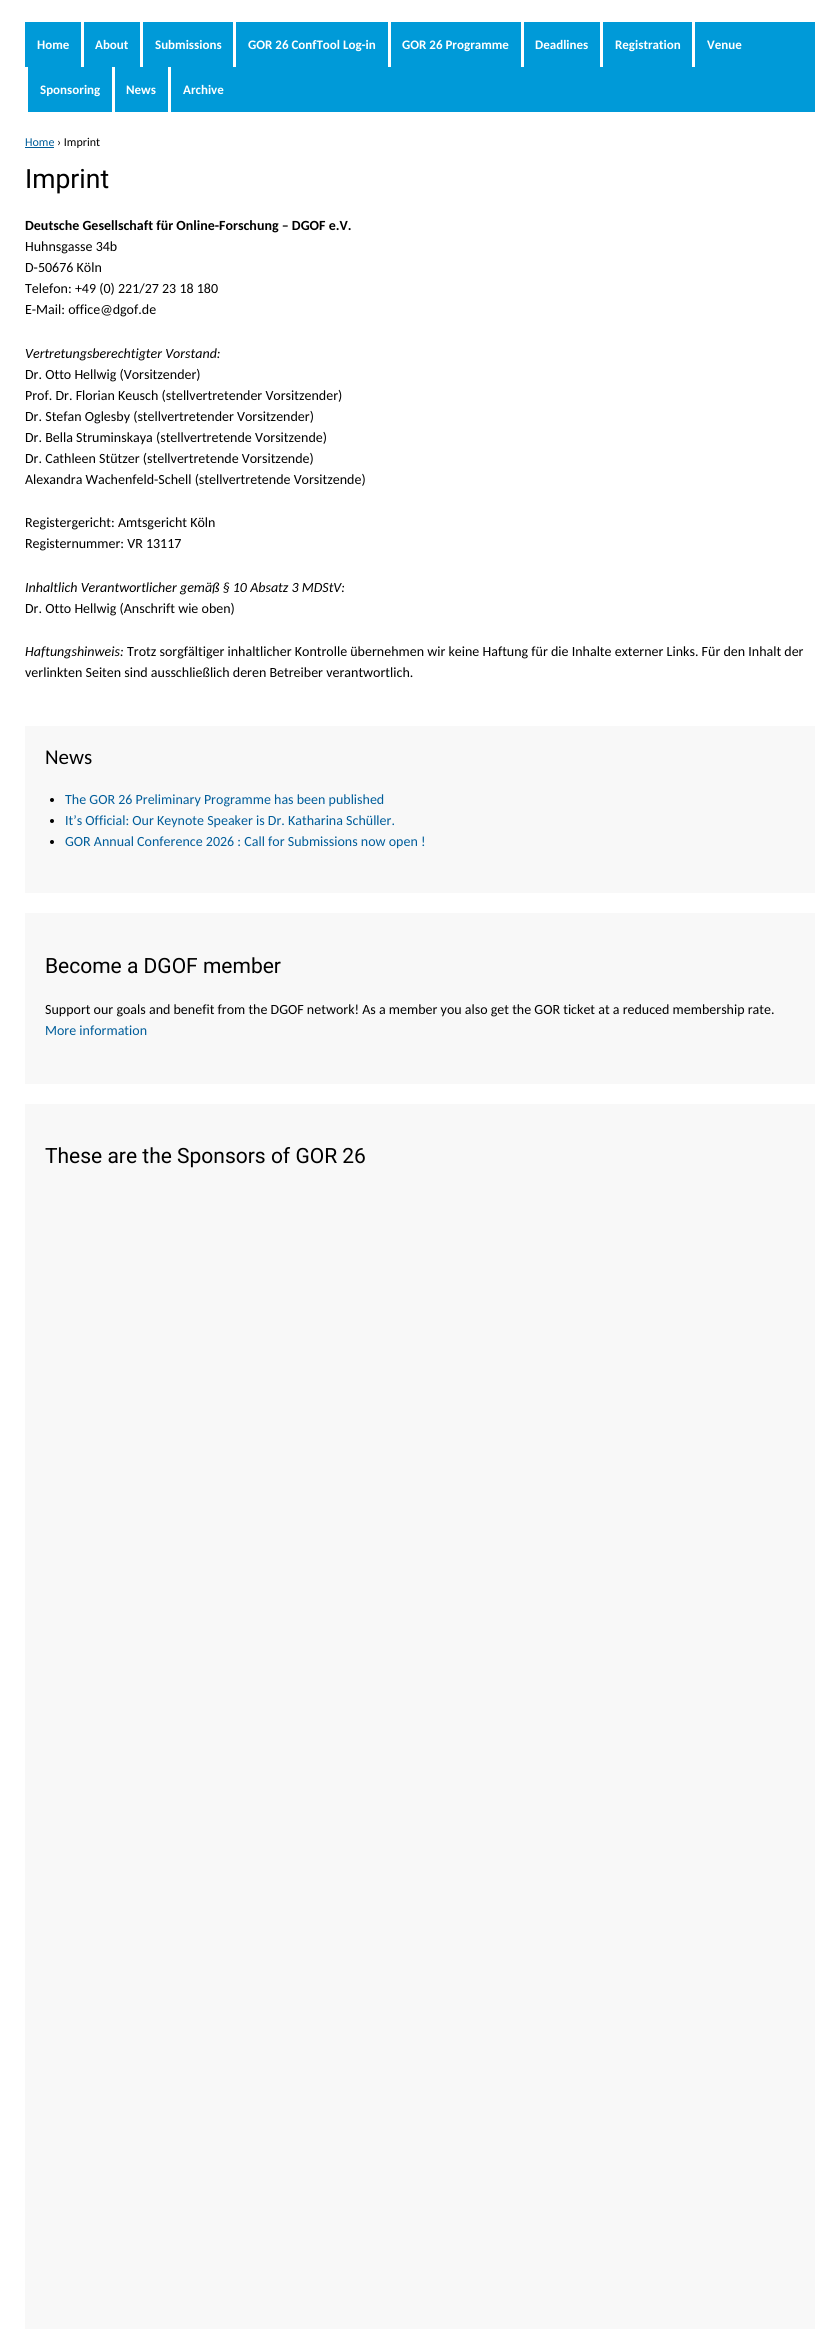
import math
import cairo

surface = cairo.ImageSurface(cairo.FORMAT_RGB24, 840, 2329)
ctx = cairo.Context(surface)
options = cairo.FontOptions()
options.set_hint_metrics(cairo.HINT_METRICS_OFF)
options.set_hint_style(cairo.HINT_STYLE_NONE)
ctx.set_font_options(options)
ctx.set_miter_limit(4)


def set_color(code):
    ctx.set_source_rgb(*(v / 255 for v in bytes.fromhex(code[-6:])))


def draw_text(x, y, s, family, size, color, bold=False, italic=False):
    ctx.select_font_face(family, cairo.FONT_SLANT_ITALIC if italic else cairo.FONT_SLANT_NORMAL, cairo.FONT_WEIGHT_BOLD if bold else cairo.FONT_WEIGHT_NORMAL)
    ctx.set_font_size(size)
    set_color(color)
    ctx.move_to(x, y)
    ctx.show_text(s)


def fill_rect(x, y, w, h, color):
    set_color(color)
    ctx.rectangle(x, y, w, h)
    ctx.fill()


set_color("#ffffff")
ctx.paint()
fill_rect(25, 22, 790, 90, "#009ad8")
draw_text(37, 49, "Home", "Carlito", 13, "#ffffff", bold=True)
fill_rect(81, 22, 3, 45, "#ffffff")
draw_text(95, 49, "About", "Carlito", 13, "#ffffff", bold=True)
fill_rect(140, 22, 3, 45, "#ffffff")
draw_text(155, 49, "Submissions", "Carlito", 13, "#ffffff", bold=True)
fill_rect(233, 22, 3, 45, "#ffffff")
draw_text(248, 49, "GOR 26 ConfTool Log-in", "Carlito", 13, "#ffffff", bold=True)
fill_rect(388, 22, 3, 45, "#ffffff")
draw_text(402, 49, "GOR 26 Programme", "Carlito", 13, "#ffffff", bold=True)
fill_rect(521, 22, 3, 45, "#ffffff")
draw_text(535, 49, "Deadlines", "Carlito", 13, "#ffffff", bold=True)
fill_rect(600, 22, 3, 45, "#ffffff")
draw_text(615, 49, "Registration", "Carlito", 13, "#ffffff", bold=True)
fill_rect(692, 22, 3, 45, "#ffffff")
draw_text(707, 49, "Venue", "Carlito", 13, "#ffffff", bold=True)
fill_rect(25, 67, 3, 45, "#ffffff")
draw_text(40, 94, "Sponsoring", "Carlito", 13, "#ffffff", bold=True)
fill_rect(112, 67, 3, 45, "#ffffff")
draw_text(126, 94, "News", "Carlito", 13, "#ffffff", bold=True)
fill_rect(168, 67, 3, 45, "#ffffff")
draw_text(183, 94, "Archive", "Carlito", 13, "#ffffff", bold=True)
draw_text(25, 146, "Home", "Carlito", 12, "#005d9a")
fill_rect(25, 147, 29, 1, "#005d9a")
draw_text(57, 146, "› Imprint", "Carlito", 12, "#000000")
draw_text(25, 188, "Imprint", "Roboto", 26.5, "#000000")
draw_text(25, 230, "Deutsche Gesellschaft für Online-Forschung – DGOF e.V.", "Carlito", 14, "#000000", bold=True)
draw_text(25, 251, "Huhnsgasse 34b", "Carlito", 14, "#000000")
draw_text(25, 272, "D-50676 Köln", "Carlito", 14, "#000000")
draw_text(25, 293, "Telefon: +49 (0) 221/27 23 18 180", "Carlito", 14, "#000000")
draw_text(25, 314, "E-Mail: office@dgof.de", "Carlito", 14, "#000000")
draw_text(25, 358, "Vertretungsberechtigter Vorstand:", "Carlito", 14, "#000000", italic=True)
draw_text(25, 379, "Dr. Otto Hellwig (Vorsitzender)", "Carlito", 14, "#000000")
draw_text(25, 400, "Prof. Dr. Florian Keusch (stellvertretender Vorsitzender)", "Carlito", 14, "#000000")
draw_text(25, 421, "Dr. Stefan Oglesby (stellvertretender Vorsitzender)", "Carlito", 14, "#000000")
draw_text(25, 442, "Dr. Bella Struminskaya (stellvertretende Vorsitzende)", "Carlito", 14, "#000000")
draw_text(25, 463, "Dr. Cathleen Stützer (stellvertretende Vorsitzende)", "Carlito", 14, "#000000")
draw_text(25, 484, "Alexandra Wachenfeld-Schell (stellvertretende Vorsitzende)", "Carlito", 14, "#000000")
draw_text(25, 527, "Registergericht: Amtsgericht Köln", "Carlito", 14, "#000000")
draw_text(25, 548, "Registernummer: VR 13117", "Carlito", 14, "#000000")
draw_text(25, 592, "Inhaltlich Verantwortlicher gemäß § 10 Absatz 3 MDStV:", "Carlito", 14, "#000000", italic=True)
draw_text(25, 613, "Dr. Otto Hellwig (Anschrift wie oben)", "Carlito", 14, "#000000")
draw_text(25, 656, "Haftungshinweis:", "Carlito", 14, "#000000", italic=True)
draw_text(127, 656, "Trotz sorgfältiger inhaltlicher Kontrolle übernehmen wir keine Haftung für die Inhalte externer Links. Für den Inhalt der", "Carlito", 14, "#000000")
draw_text(25, 677, "verlinkten Seiten sind ausschließlich deren Betreiber verantwortlich.", "Carlito", 14, "#000000")
fill_rect(25, 726, 790, 167, "#f8f8f8")
draw_text(45, 764, "News", "Carlito", 21, "#000000")
ctx.new_path()
ctx.arc(52, 800, 2, 0, 2 * math.pi)
ctx.fill()
draw_text(65, 804, "The GOR 26 Preliminary Programme has been published", "Carlito", 14, "#005d9a")
set_color("#000000")
ctx.new_path()
ctx.arc(52, 821, 2, 0, 2 * math.pi)
ctx.fill()
draw_text(65, 825, "It’s Official: Our Keynote Speaker is Dr. Katharina Schüller.", "Carlito", 14, "#005d9a")
set_color("#000000")
ctx.new_path()
ctx.arc(52, 842, 2, 0, 2 * math.pi)
ctx.fill()
draw_text(65, 846, "GOR Annual Conference 2026 : Call for Submissions now open !", "Carlito", 14, "#005d9a")
fill_rect(25, 913, 790, 171, "#f8f8f8")
draw_text(45, 973, "Become a DGOF member", "Roboto", 21, "#000000")
draw_text(45, 1014, "Support our goals and benefit from the DGOF network! As a member you also get the GOR ticket at a reduced membership rate.", "Carlito", 14, "#000000")
draw_text(45, 1035, "More information", "Carlito", 14, "#005d9a")
fill_rect(25, 1104, 790, 1225, "#f8f8f8")
draw_text(45, 1163, "These are the Sponsors of GOR 26", "Roboto", 21, "#000000")
surface.write_to_png("output.png")
